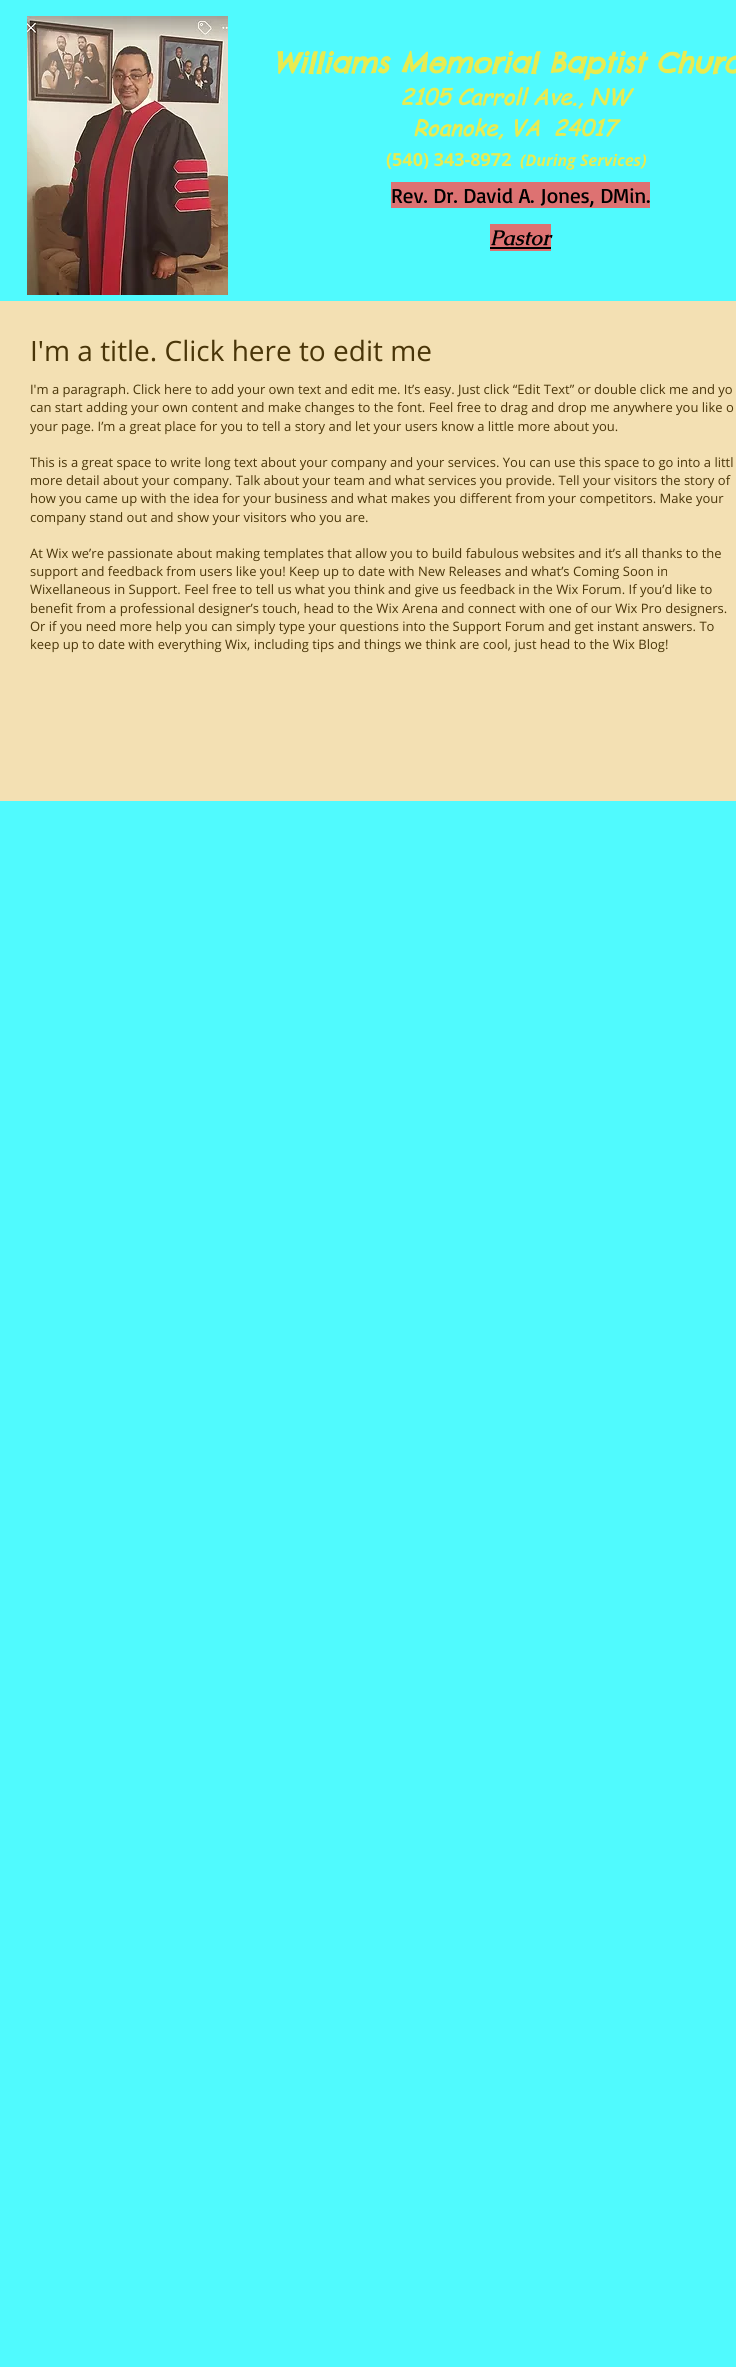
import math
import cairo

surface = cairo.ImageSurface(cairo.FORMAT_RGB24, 736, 2367)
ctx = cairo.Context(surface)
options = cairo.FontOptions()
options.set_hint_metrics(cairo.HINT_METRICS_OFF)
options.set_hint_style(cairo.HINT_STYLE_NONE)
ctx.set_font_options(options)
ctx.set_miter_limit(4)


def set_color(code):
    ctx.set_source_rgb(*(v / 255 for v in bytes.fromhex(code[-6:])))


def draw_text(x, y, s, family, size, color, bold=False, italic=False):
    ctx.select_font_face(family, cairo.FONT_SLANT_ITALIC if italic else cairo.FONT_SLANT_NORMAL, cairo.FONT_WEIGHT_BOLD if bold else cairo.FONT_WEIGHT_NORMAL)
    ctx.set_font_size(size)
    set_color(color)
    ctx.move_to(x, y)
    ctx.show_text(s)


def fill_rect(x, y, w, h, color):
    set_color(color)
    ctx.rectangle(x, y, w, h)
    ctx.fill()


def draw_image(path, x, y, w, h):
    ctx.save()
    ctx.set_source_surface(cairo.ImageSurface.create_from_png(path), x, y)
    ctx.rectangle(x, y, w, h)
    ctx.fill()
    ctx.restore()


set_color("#50fafe")
ctx.paint()
draw_image("assets/img1.png", 27, 16, 201, 279)
draw_text(273, 73, "Williams Memorial Baptist Churc", "Chelsea Market", 28, "#e8eb50", bold=True, italic=True)
draw_text(400, 105, "2105 Carroll Ave., NW", "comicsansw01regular", 22, "#e8eb50", bold=True, italic=True)
draw_text(413, 136, "Roanoke, VA  24017", "comicsansw01regular", 22, "#e8eb50", bold=True, italic=True)
draw_text(386, 166, "(540) 343-8972", "Open Sans", 18, "#e8eb50", bold=True)
draw_text(520, 166, "(During Services)", "Open Sans", 16, "#e8eb50", bold=True, italic=True)
fill_rect(391, 182, 259, 26, "#dd7272")
draw_text(391, 203, "Rev. Dr. David A. Jones, DMin.", "Basic", 21, "#000000")
fill_rect(490, 224, 61, 27, "#dd7272")
draw_text(490, 245, "Pastor", "Caudex", 21, "#000000", bold=True, italic=True)
fill_rect(490, 247, 61, 2, "#000000")
fill_rect(0, 301, 736, 500, "#f3e0b3")
draw_text(30, 361, "I'm a title. Click here to edit me", "Open Sans", 28, "#493508")
draw_text(30, 394, "I'm a paragraph. Click here to add your own text and edit me. It’s easy. Just click “Edit Text” or double click me and yo", "Open Sans", 13, "#493508")
draw_text(30, 412, "can start adding your own content and make changes to the font. Feel free to drag and drop me anywhere you like o", "Open Sans", 13, "#493508")
draw_text(30, 431, "your page. I’m a great place for you to tell a story and let your users know a little more about you.", "Open Sans", 13, "#493508")
draw_text(30, 467, "This is a great space to write long text about your company and your services. You can use this space to go into a littl", "Open Sans", 13, "#493508")
draw_text(30, 485, "more detail about your company. Talk about your team and what services you provide. Tell your visitors the story of", "Open Sans", 13, "#493508")
draw_text(30, 503, "how you came up with the idea for your business and what makes you different from your competitors. Make your", "Open Sans", 13, "#493508")
draw_text(30, 522, "company stand out and show your visitors who you are.", "Open Sans", 13, "#493508")
draw_text(30, 558, "At Wix we’re passionate about making templates that allow you to build fabulous websites and it’s all thanks to the", "Open Sans", 13, "#493508")
draw_text(30, 576, "support and feedback from users like you! Keep up to date with New Releases and what’s Coming Soon in", "Open Sans", 13, "#493508")
draw_text(30, 594, "Wixellaneous in Support. Feel free to tell us what you think and give us feedback in the Wix Forum. If you’d like to", "Open Sans", 13, "#493508")
draw_text(30, 613, "benefit from a professional designer’s touch, head to the Wix Arena and connect with one of our Wix Pro designers.", "Open Sans", 13, "#493508")
draw_text(30, 631, "Or if you need more help you can simply type your questions into the Support Forum and get instant answers. To", "Open Sans", 13, "#493508")
draw_text(30, 649, "keep up to date with everything Wix, including tips and things we think are cool, just head to the Wix Blog!", "Open Sans", 13, "#493508")
surface.write_to_png("output.png")
